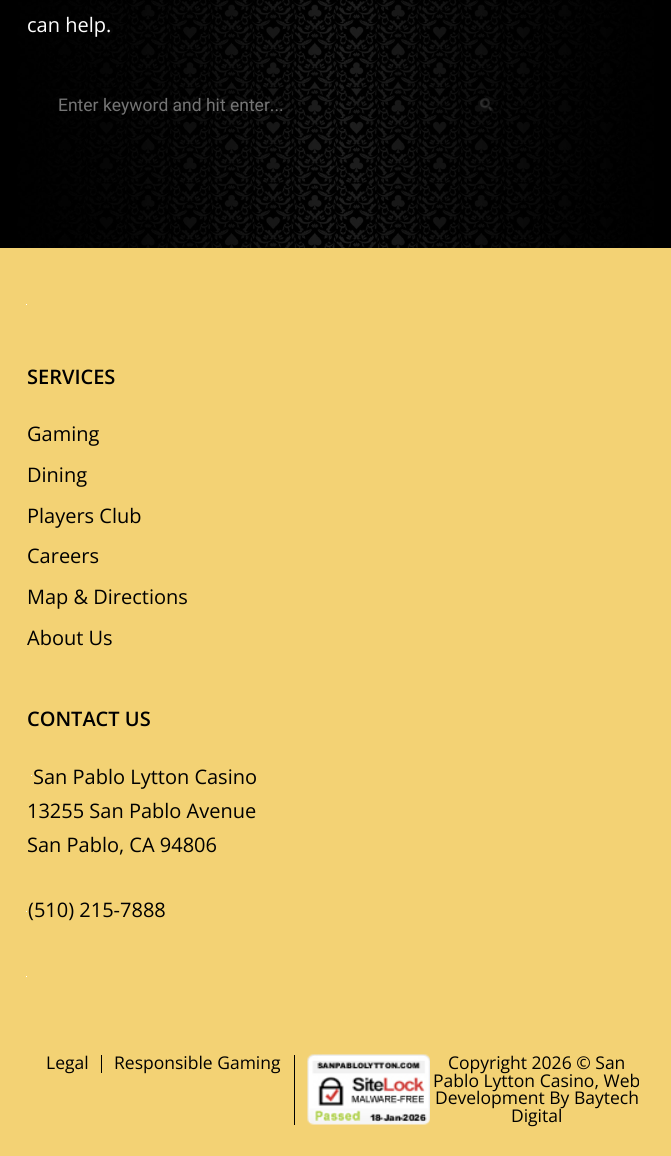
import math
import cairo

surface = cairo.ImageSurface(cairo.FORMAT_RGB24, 671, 1156)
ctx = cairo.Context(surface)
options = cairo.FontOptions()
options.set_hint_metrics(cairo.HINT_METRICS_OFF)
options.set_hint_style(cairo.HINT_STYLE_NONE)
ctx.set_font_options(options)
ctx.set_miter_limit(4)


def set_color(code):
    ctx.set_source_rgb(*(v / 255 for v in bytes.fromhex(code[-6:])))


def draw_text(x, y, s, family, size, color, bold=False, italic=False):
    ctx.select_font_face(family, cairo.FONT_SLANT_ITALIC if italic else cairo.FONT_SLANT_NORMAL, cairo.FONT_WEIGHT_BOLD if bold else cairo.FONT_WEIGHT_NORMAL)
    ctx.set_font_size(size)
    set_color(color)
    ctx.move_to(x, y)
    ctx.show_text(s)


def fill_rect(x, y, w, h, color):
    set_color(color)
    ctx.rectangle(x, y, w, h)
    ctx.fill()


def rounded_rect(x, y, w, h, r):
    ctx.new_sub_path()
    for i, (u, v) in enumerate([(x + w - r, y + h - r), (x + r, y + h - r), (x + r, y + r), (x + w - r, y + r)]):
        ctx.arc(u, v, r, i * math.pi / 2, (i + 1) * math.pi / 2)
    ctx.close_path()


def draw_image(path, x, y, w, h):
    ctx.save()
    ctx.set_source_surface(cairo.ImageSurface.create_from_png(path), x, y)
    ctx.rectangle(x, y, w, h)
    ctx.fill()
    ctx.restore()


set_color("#ffffff")
ctx.paint()
draw_image("assets/img1.png", 0, 0, 671, 248)
draw_text(27, 32, "can help.", "Open Sans", 20, "#ffffff")
draw_image("assets/img2.png", 480, 98, 13, 13)
rounded_rect(26.5, 74.5, 487, 60, 3.5)
ctx.set_source_rgba(0, 0, 0, 0.1)
ctx.set_line_width(1)
ctx.stroke()
draw_text(58, 111, "Enter keyword and hit enter...", "Roboto", 17.5, "#757575")
fill_rect(0, 248, 671, 908, "#f3d274")
fill_rect(26, 304, 1, 1, "#ffffff")
draw_text(27, 384, "SERVICES", "Open Sans SemiBold", 20, "#000000")
draw_text(27, 441, "Gaming", "Open Sans", 20, "#000000")
draw_text(27, 482, "Dining", "Open Sans", 20, "#000000")
draw_text(27, 523, "Players Club", "Open Sans", 20, "#000000")
draw_text(27, 563, "Careers", "Open Sans", 20, "#000000")
draw_text(27, 604, "Map & Directions", "Open Sans", 20, "#000000")
draw_text(27, 645, "About Us", "Open Sans", 20, "#000000")
draw_text(27, 726, "CONTACT US", "Open Sans SemiBold", 20, "#000000")
fill_rect(31, 775, 1, 1, "#ffffff")
draw_text(33, 784, "San Pablo Lytton Casino", "Open Sans", 20, "#000000")
draw_text(27, 818, "13255 San Pablo Avenue", "Open Sans", 20, "#000000")
draw_text(27, 852, "San Pablo, CA 94806", "Open Sans", 20, "#000000")
fill_rect(26, 911, 1, 1, "#ffffff")
draw_text(28, 917, "(510) 215-7888", "Open Sans", 20, "#000000")
fill_rect(26, 976, 1, 1, "#ffffff")
draw_text(46, 1069, "Legal", "Open Sans", 17.5, "#000000")
fill_rect(101, 1055, 1, 18, "#000000")
draw_text(114, 1069, "Responsible Gaming", "Open Sans", 17.5, "#000000")
fill_rect(294, 1055, 1, 70, "#000000")
draw_image("assets/img3.png", 307, 1054, 123, 71)
draw_text(448, 1069, "Copyright 2026 © San", "Open Sans", 17.5, "#000000")
draw_text(433, 1087, "Pablo Lytton Casino, Web", "Open Sans", 17.5, "#000000")
draw_text(435, 1104, "Development By Baytech", "Open Sans", 17.5, "#000000")
draw_text(511, 1122, "Digital", "Open Sans", 17.5, "#000000")
surface.write_to_png("output.png")
